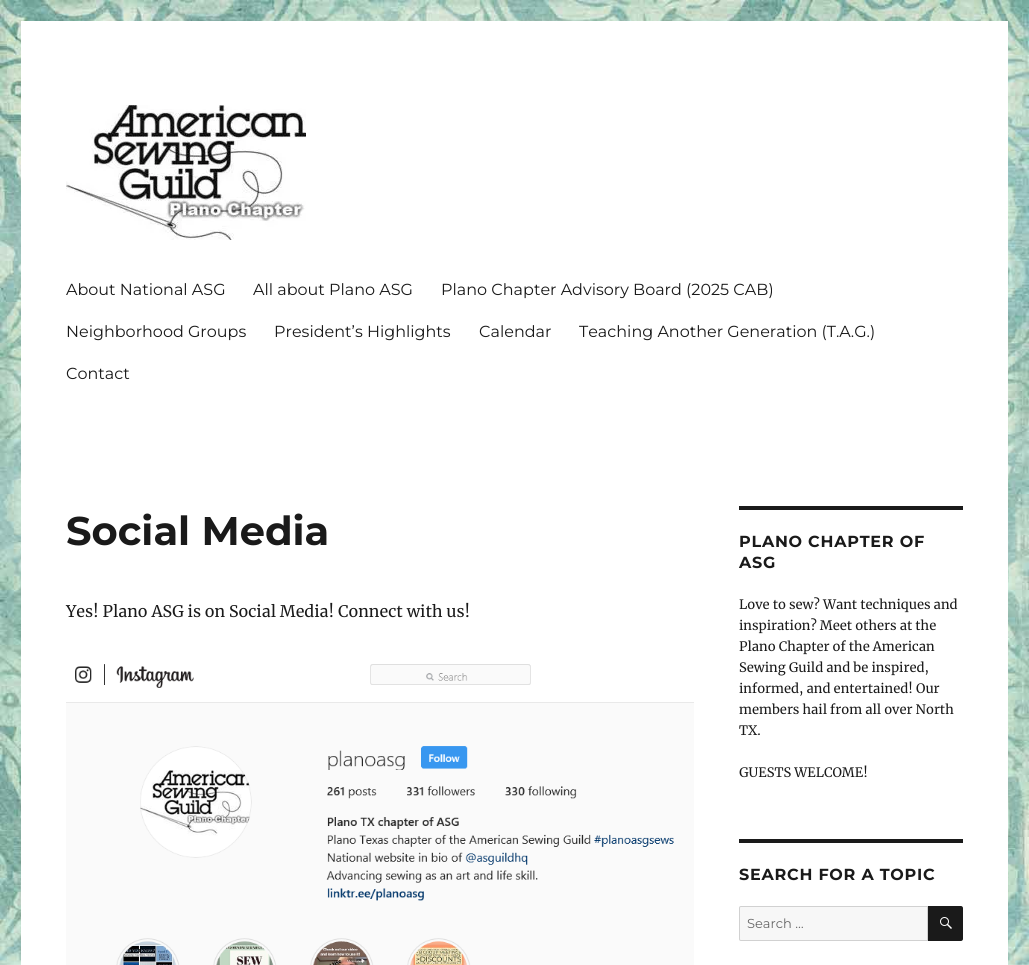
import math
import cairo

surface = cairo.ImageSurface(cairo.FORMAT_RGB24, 1029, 965)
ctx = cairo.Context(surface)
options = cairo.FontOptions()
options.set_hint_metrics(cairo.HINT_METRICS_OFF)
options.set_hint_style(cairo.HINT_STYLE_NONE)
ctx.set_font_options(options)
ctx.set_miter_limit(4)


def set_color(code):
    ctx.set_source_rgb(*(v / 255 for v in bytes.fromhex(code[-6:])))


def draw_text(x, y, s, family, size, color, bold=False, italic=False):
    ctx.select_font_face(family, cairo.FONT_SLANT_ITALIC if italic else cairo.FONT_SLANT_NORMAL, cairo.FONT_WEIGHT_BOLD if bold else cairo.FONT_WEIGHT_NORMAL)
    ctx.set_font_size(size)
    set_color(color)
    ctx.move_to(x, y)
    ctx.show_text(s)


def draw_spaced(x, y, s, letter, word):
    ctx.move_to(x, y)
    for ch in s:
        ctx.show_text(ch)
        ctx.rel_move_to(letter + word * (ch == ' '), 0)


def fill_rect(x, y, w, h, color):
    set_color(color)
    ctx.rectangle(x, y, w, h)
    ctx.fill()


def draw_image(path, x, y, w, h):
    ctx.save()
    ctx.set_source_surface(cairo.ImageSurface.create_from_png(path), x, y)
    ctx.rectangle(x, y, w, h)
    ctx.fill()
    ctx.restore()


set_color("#ffffff")
ctx.paint()
draw_image("assets/img1.png", 0, 0, 1029, 965)
fill_rect(21, 21, 987, 944, "#ffffff")
draw_image("assets/img2.png", 66, 105, 240, 135)
draw_text(66, 295, "About National ASG", "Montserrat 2 Thin", 16, "#1a1a1a")
draw_text(253, 295, "All about Plano ASG", "Montserrat 2 Thin", 16, "#1a1a1a")
draw_text(441, 295, "Plano Chapter Advisory Board (2025 CAB)", "Montserrat 2 Thin", 16, "#1a1a1a")
draw_text(66, 337, "Neighborhood Groups", "Montserrat 2 Thin", 16, "#1a1a1a")
draw_text(274, 337, "President’s Highlights", "Montserrat 2 Thin", 16, "#1a1a1a")
draw_text(479, 337, "Calendar", "Montserrat 2 Thin", 16, "#1a1a1a")
draw_text(579, 337, "Teaching Another Generation (T.A.G.)", "Montserrat 2 Thin", 16, "#1a1a1a")
draw_text(66, 379, "Contact", "Montserrat 2 Thin", 16, "#1a1a1a")
draw_text(66, 545, "Social Media", "Montserrat Thin", 40, "#1a1a1a")
draw_text(66, 617, "Yes! Plano ASG is on Social Media! Connect with us!", "Merriweather", 16, "#1a1a1a")
draw_image("assets/img3.png", 66, 664, 628, 301)
fill_rect(739, 506, 224, 4, "#1a1a1a")
ctx.select_font_face("Montserrat Thin")
draw_spaced(739, 547, "PLANO CHAPTER OF", 0.75, 0)
draw_spaced(739, 568, "ASG", 0.75, 0)
draw_text(739, 609, "Love to sew? Want techniques and", "Merriweather", 13, "#1a1a1a")
draw_text(739, 630, "inspiration? Meet others at the", "Merriweather", 13, "#1a1a1a")
draw_text(739, 651, "Plano Chapter of the American", "Merriweather", 13, "#1a1a1a")
draw_text(739, 672, "Sewing Guild and be inspired,", "Merriweather", 13, "#1a1a1a")
draw_text(739, 693, "informed, and entertained! Our", "Merriweather", 13, "#1a1a1a")
draw_text(739, 714, "members hail from all over North", "Merriweather", 13, "#1a1a1a")
draw_text(739, 735, "TX.", "Merriweather", 13, "#1a1a1a")
draw_text(739, 777, "GUESTS WELCOME!", "Merriweather", 13, "#1a1a1a")
fill_rect(739, 839, 224, 4, "#1a1a1a")
ctx.select_font_face("Montserrat Thin")
ctx.set_font_size(16)
draw_spaced(739, 880, "SEARCH FOR A TOPIC", 0.75, 0)
set_color("#f7f7f7")
ctx.new_path()
ctx.move_to(741, 906.5)
ctx.line_to(927.5, 906.5)
ctx.line_to(927.5, 940.5)
ctx.line_to(741, 940.5)
ctx.curve_to(740, 940.5, 739.5, 940, 739.5, 939)
ctx.line_to(739.5, 908)
ctx.curve_to(739.5, 907, 740, 906.5, 741, 906.5)
ctx.close_path()
ctx.fill_preserve()
set_color("#d1d1d1")
ctx.set_line_width(1)
ctx.stroke()
draw_text(747, 928, "Search …", "Montserrat 2 Thin", 13, "#686868")
set_color("#1a1a1a")
ctx.new_path()
ctx.move_to(928, 906)
ctx.line_to(961, 906)
ctx.curve_to(962, 906, 963, 907, 963, 908)
ctx.line_to(963, 939)
ctx.curve_to(963, 940, 962, 941, 961, 941)
ctx.line_to(928, 941)
ctx.close_path()
ctx.fill()
draw_image("assets/img4.png", 940, 917, 12, 12)
surface.write_to_png("output.png")
